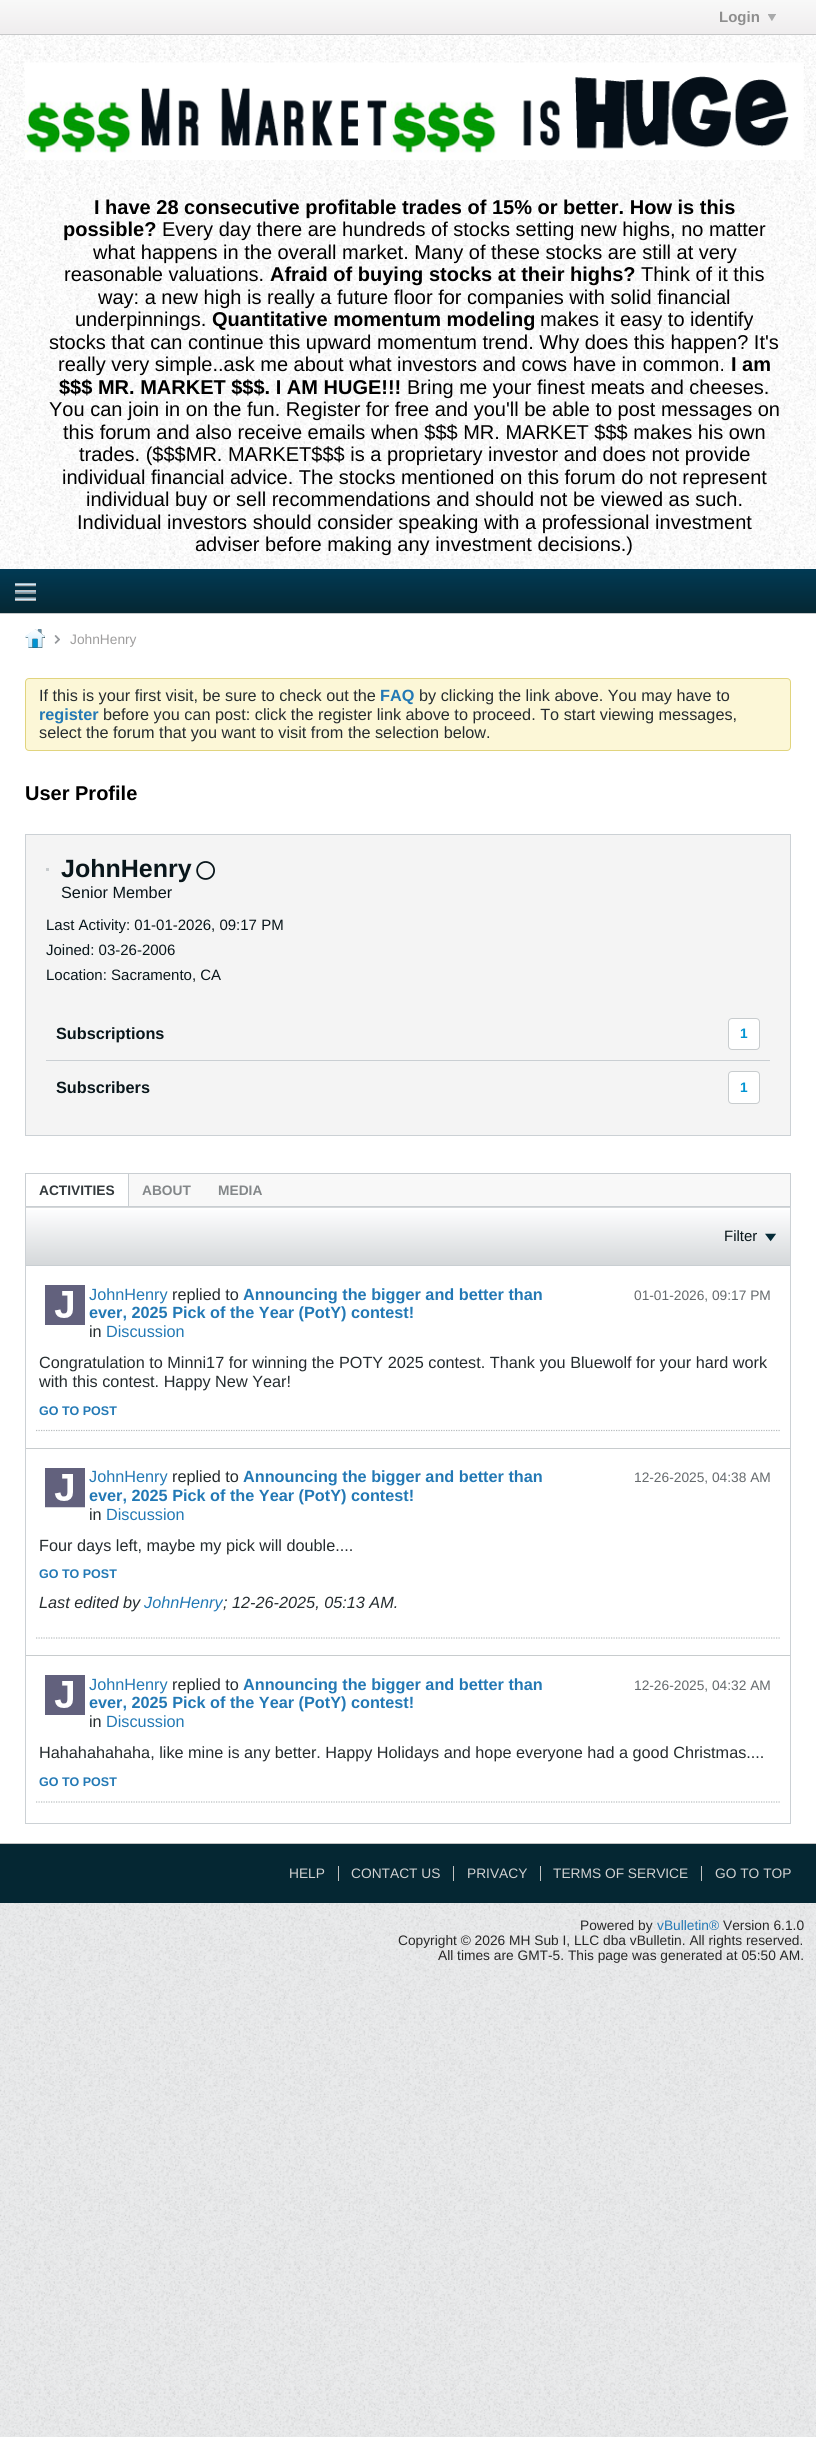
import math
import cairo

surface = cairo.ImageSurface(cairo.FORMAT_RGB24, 816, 2437)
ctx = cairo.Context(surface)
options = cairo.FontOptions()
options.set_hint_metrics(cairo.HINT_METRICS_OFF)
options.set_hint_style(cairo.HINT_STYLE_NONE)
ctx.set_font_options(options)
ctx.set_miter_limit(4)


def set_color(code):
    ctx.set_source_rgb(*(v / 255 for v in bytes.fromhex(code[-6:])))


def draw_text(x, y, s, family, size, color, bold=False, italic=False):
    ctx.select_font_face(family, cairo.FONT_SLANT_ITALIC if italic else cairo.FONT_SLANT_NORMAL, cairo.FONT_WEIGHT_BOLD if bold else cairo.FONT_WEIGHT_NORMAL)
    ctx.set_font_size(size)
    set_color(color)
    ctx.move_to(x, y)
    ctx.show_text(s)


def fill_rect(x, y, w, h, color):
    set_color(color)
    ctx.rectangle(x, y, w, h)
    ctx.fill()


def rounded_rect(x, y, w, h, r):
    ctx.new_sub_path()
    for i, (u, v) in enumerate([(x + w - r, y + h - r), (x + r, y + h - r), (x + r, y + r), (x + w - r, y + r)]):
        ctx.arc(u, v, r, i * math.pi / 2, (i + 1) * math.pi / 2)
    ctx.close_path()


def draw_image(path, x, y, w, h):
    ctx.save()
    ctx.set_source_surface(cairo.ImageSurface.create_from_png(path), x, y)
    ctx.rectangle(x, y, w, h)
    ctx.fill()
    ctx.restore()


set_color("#eaebec")
ctx.paint()
draw_image("assets/img1.png", 0, 1903, 816, 534)
gradient = cairo.LinearGradient(408, 0, 408, 34)
gradient.add_color_stop_rgba(0, 0.973, 0.973, 0.973, 1)
gradient.add_color_stop_rgba(1, 0.937, 0.929, 0.933, 1)
ctx.set_source(gradient)
ctx.rectangle(0, 0, 816, 34)
ctx.fill()
fill_rect(0, 34, 816, 1, "#c7c8c9")
draw_text(719, 22, "Login", "Liberation Sans", 15, "#8e8e8e", bold=True)
draw_image("assets/img2.png", 768, 14, 8, 7)
fill_rect(0, 35, 816, 534, "#ffffff")
draw_image("assets/img3.png", 0, 35, 816, 534)
draw_image("assets/img4.png", 25, 62, 779, 98)
draw_text(94, 214, "I have 28 consecutive profitable trades of 15% or better. How is this", "Liberation Sans", 20, "#000000", bold=True)
draw_text(63, 236, "possible?", "Liberation Sans", 20, "#000000", bold=True)
draw_text(162, 236, "Every day there are hundreds of stocks setting new highs, no matter", "Liberation Sans", 20, "#000000")
draw_text(93, 259, "what happens in the overall market. Many of these stocks are still at very", "Liberation Sans", 20, "#000000")
draw_text(64, 281, "reasonable valuations.", "Liberation Sans", 20, "#000000")
draw_text(270, 281, "Afraid of buying stocks at their highs?", "Liberation Sans", 20, "#000000", bold=True)
draw_text(641, 281, "Think of it this", "Liberation Sans", 20, "#000000")
draw_text(98, 304, "way: a new high is really a future floor for companies with solid financial", "Liberation Sans", 20, "#000000")
draw_text(75, 326, "underpinnings.", "Liberation Sans", 20, "#000000")
draw_text(212, 326, "Quantitative momentum modeling", "Liberation Sans", 20, "#000000", bold=True)
draw_text(540, 326, "makes it easy to identify", "Liberation Sans", 20, "#000000")
draw_text(49, 349, "stocks that can continue this upward momentum trend. Why does this happen? It's", "Liberation Sans", 20, "#000000")
draw_text(58, 371, "really very simple..ask me about what investors and cows have in common.", "Liberation Sans", 20, "#000000")
draw_text(731, 371, "I am", "Liberation Sans", 20, "#000000", bold=True)
draw_text(59, 394, "$$$ MR. MARKET $$$. I AM HUGE!!!", "Liberation Sans", 20, "#000000", bold=True)
draw_text(407, 394, "Bring me your finest meats and cheeses.", "Liberation Sans", 20, "#000000")
draw_text(49, 416, "You can join in on the fun. Register for free and you'll be able to post messages on", "Liberation Sans", 20, "#000000")
draw_text(63, 439, "this forum and also receive emails when $$$ MR. MARKET $$$ makes his own", "Liberation Sans", 20, "#000000")
draw_text(79, 461, "trades. ($$$MR. MARKET$$$ is a proprietary investor and does not provide", "Liberation Sans", 20, "#000000")
draw_text(62, 484, "individual financial advice. The stocks mentioned on this forum do not represent", "Liberation Sans", 20, "#000000")
draw_text(86, 506, "individual buy or sell recommendations and should not be viewed as such.", "Liberation Sans", 20, "#000000")
draw_text(77, 529, "Individual investors should consider speaking with a professional investment", "Liberation Sans", 20, "#000000")
draw_text(195, 551, "adviser before making any investment decisions.)", "Liberation Sans", 20, "#000000")
gradient = cairo.LinearGradient(408, 569, 408, 613)
gradient.add_color_stop_rgba(0, 0.004, 0.227, 0.329, 1)
gradient.add_color_stop_rgba(1, 0.02, 0.153, 0.2, 1)
ctx.set_source(gradient)
ctx.rectangle(0, 569, 816, 44)
ctx.fill()
fill_rect(0, 613, 816, 1, "#c4c7c8")
draw_image("assets/img5.png", 15, 583, 21, 18)
fill_rect(0, 614, 816, 1229, "#ffffff")
draw_image("assets/img6.png", 25, 629, 20, 19)
draw_image("assets/img7.png", 54, 635, 6, 9)
draw_text(70, 644, "JohnHenry", "Liberation Sans", 13.75, "#9e9d9d")
set_color("#fcf7d7")
rounded_rect(25.5, 678.5, 765, 72, 3.5)
ctx.fill_preserve()
set_color("#e1d47e")
ctx.set_line_width(1)
ctx.stroke()
draw_text(39, 701, "If this is your first visit, be sure to check out the", "Liberation Sans", 16.25, "#252c2f")
draw_text(380, 701, "FAQ", "Liberation Sans", 16.25, "#2379b5", bold=True)
draw_text(419, 701, "by clicking the link above. You may have to", "Liberation Sans", 16.25, "#252c2f")
draw_text(39, 720, "register", "Liberation Sans", 16.25, "#2379b5", bold=True)
draw_text(103, 720, "before you can post: click the register link above to proceed. To start viewing messages,", "Liberation Sans", 16.25, "#252c2f")
draw_text(39, 738, "select the forum that you want to visit from the selection below.", "Liberation Sans", 16.25, "#252c2f")
draw_text(25, 800, "User Profile", "Liberation Sans", 20, "#000000", bold=True)
ctx.rectangle(25.5, 834.5, 765, 301)
set_color("#ccd1d5")
ctx.stroke()
fill_rect(26, 835, 764, 300, "#f4f4f4")
fill_rect(46, 868, 3, 3, "#c8ccce")
draw_text(61, 877, "JohnHenry", "Liberation Sans", 25, "#09161b", bold=True)
draw_image("assets/img8.png", 196, 861, 19, 19)
draw_text(61, 898, "Senior Member", "Liberation Sans", 16.25, "#09161b")
draw_text(46, 930, "Last Activity: 01-01-2026, 09:17 PM", "Liberation Sans", 15, "#09161b")
draw_text(46, 955, "Joined: 03-26-2006", "Liberation Sans", 15, "#09161b")
draw_text(46, 980, "Location: Sacramento, CA", "Liberation Sans", 15, "#09161b")
fill_rect(46, 1060, 724, 1, "#cacfd3")
draw_text(56, 1039, "Subscriptions", "Liberation Sans", 16.25, "#09161b", bold=True)
set_color("#ffffff")
rounded_rect(728.5, 1018.5, 31, 31, 3.5)
ctx.fill_preserve()
set_color("#c8ccce")
ctx.stroke()
draw_text(740, 1038, "1", "Liberation Sans", 13.75, "#0093d2", bold=True)
draw_text(56, 1093, "Subscribers", "Liberation Sans", 16.25, "#09161b", bold=True)
set_color("#ffffff")
rounded_rect(728.5, 1071.5, 31, 32, 3.5)
ctx.fill_preserve()
set_color("#c8ccce")
ctx.stroke()
draw_text(740, 1092, "1", "Liberation Sans", 13.75, "#0093d2", bold=True)
ctx.rectangle(25.5, 1173.5, 765, 650)
set_color("#ccd1d5")
ctx.stroke()
set_color("#ffffff")
rounded_rect(26, 1173, 764, 646, 4)
ctx.fill()
fill_rect(129, 1174, 661, 32, "#f8f8f8")
fill_rect(25, 1173, 766, 1, "#c9ced2")
fill_rect(790, 1173, 1, 33, "#c9ced2")
fill_rect(128, 1173, 1, 33, "#c9ced2")
fill_rect(25, 1173, 1, 33, "#c9ced2")
draw_text(39, 1195, "ACTIVITIES", "Liberation Sans", 13.75, "#343a3d", bold=True)
draw_text(142, 1195, "ABOUT", "Liberation Sans", 13.75, "#838789", bold=True)
draw_text(218, 1195, "MEDIA", "Liberation Sans", 13.75, "#838789", bold=True)
gradient = cairo.LinearGradient(408, 1150, 408, 1208)
gradient.add_color_stop_rgba(0, 0.996, 0.996, 1, 1)
gradient.add_color_stop_rgba(1, 0.835, 0.847, 0.855, 1)
ctx.set_source(gradient)
ctx.rectangle(26, 1207, 764, 1)
ctx.fill()
gradient = cairo.LinearGradient(408, 1208, 408, 1265)
gradient.add_color_stop_rgba(0, 0.996, 0.996, 1, 1)
gradient.add_color_stop_rgba(1, 0.835, 0.847, 0.855, 1)
ctx.set_source(gradient)
ctx.rectangle(26, 1210, 764, 55)
ctx.fill()
fill_rect(26, 1206, 764, 1, "#c9ced2")
fill_rect(26, 1265, 764, 1, "#c9ced2")
draw_text(724, 1241, "Filter", "Liberation Sans", 15, "#09161b")
draw_image("assets/img9.png", 765, 1233, 11, 9)
draw_image("assets/img10.png", 45, 1285, 40, 40)
draw_text(89, 1300, "JohnHenry", "Liberation Sans", 16.25, "#2379b5")
draw_text(172, 1300, "replied to", "Liberation Sans", 16.25, "#252c2f")
draw_text(243, 1300, "Announcing the bigger and better than", "Liberation Sans", 16.25, "#2379b5", bold=True)
draw_text(89, 1318, "ever, 2025 Pick of the Year (PotY) contest!", "Liberation Sans", 16.25, "#2379b5", bold=True)
draw_text(89, 1337, "in", "Liberation Sans", 16.25, "#252c2f")
draw_text(106, 1337, "Discussion", "Liberation Sans", 16.25, "#2379b5")
draw_text(634, 1300, "01-01-2026, 09:17 PM", "Liberation Sans", 13.75, "#656a6d")
draw_text(39, 1368, "Congratulation to Minni17 for winning the POTY 2025 contest. Thank you Bluewolf for your hard work", "Liberation Sans", 16.25, "#252c2f")
draw_text(39, 1387, "with this contest. Happy New Year!", "Liberation Sans", 16.25, "#252c2f")
draw_text(39, 1415, "GO TO POST", "Liberation Sans", 12.5, "#2379b5", bold=True)
ctx.new_path()
ctx.move_to(36, 1430.5)
ctx.line_to(780, 1430.5)
set_color("#b7bcbe")
ctx.set_line_width(1.2)
ctx.set_dash([1.25, 1.25])
ctx.stroke()
fill_rect(26, 1448, 764, 1, "#c8ccce")
draw_image("assets/img11.png", 45, 1468, 40, 40)
draw_text(89, 1482, "JohnHenry", "Liberation Sans", 16.25, "#2379b5")
draw_text(172, 1482, "replied to", "Liberation Sans", 16.25, "#252c2f")
draw_text(243, 1482, "Announcing the bigger and better than", "Liberation Sans", 16.25, "#2379b5", bold=True)
draw_text(89, 1501, "ever, 2025 Pick of the Year (PotY) contest!", "Liberation Sans", 16.25, "#2379b5", bold=True)
draw_text(89, 1520, "in", "Liberation Sans", 16.25, "#252c2f")
draw_text(106, 1520, "Discussion", "Liberation Sans", 16.25, "#2379b5")
draw_text(634, 1482, "12-26-2025, 04:38 AM", "Liberation Sans", 13.75, "#656a6d")
draw_text(39, 1551, "Four days left, maybe my pick will double....", "Liberation Sans", 16.25, "#252c2f")
draw_text(39, 1578, "GO TO POST", "Liberation Sans", 12.5, "#2379b5", bold=True)
draw_text(39, 1608, "Last edited by", "Liberation Sans", 16.25, "#252c2f", italic=True)
draw_text(144, 1608, "JohnHenry", "Liberation Sans", 16.25, "#2379b5", italic=True)
draw_text(223, 1608, "; 12-26-2025, 05:13 AM.", "Liberation Sans", 16.25, "#252c2f", italic=True)
ctx.new_path()
ctx.move_to(36, 1638)
ctx.line_to(780, 1638)
set_color("#b7bcbe")
ctx.stroke()
fill_rect(26, 1655, 764, 1, "#c8ccce")
draw_image("assets/img10.png", 45, 1675, 40, 40)
draw_text(89, 1690, "JohnHenry", "Liberation Sans", 16.25, "#2379b5")
draw_text(172, 1690, "replied to", "Liberation Sans", 16.25, "#252c2f")
draw_text(243, 1690, "Announcing the bigger and better than", "Liberation Sans", 16.25, "#2379b5", bold=True)
draw_text(89, 1708, "ever, 2025 Pick of the Year (PotY) contest!", "Liberation Sans", 16.25, "#2379b5", bold=True)
draw_text(89, 1727, "in", "Liberation Sans", 16.25, "#252c2f")
draw_text(106, 1727, "Discussion", "Liberation Sans", 16.25, "#2379b5")
draw_text(634, 1690, "12-26-2025, 04:32 AM", "Liberation Sans", 13.75, "#656a6d")
draw_text(39, 1758, "Hahahahahaha, like mine is any better. Happy Holidays and hope everyone had a good Christmas....", "Liberation Sans", 16.25, "#252c2f")
draw_text(39, 1786, "GO TO POST", "Liberation Sans", 12.5, "#2379b5", bold=True)
ctx.new_path()
ctx.move_to(36, 1802)
ctx.line_to(780, 1802)
set_color("#b7bcbe")
ctx.stroke()
fill_rect(0, 1844, 816, 59, "#052733")
fill_rect(0, 1843, 816, 1, "#c2c2c2")
draw_text(289, 1878, "HELP", "Liberation Sans", 13.75, "#d2d2d2")
draw_text(351, 1878, "CONTACT US", "Liberation Sans", 13.75, "#d2d2d2")
fill_rect(338, 1866, 1, 15, "#c2c2c2")
draw_text(467, 1878, "PRIVACY", "Liberation Sans", 13.75, "#d2d2d2")
fill_rect(453, 1866, 1, 15, "#c2c2c2")
draw_text(553, 1878, "TERMS OF SERVICE", "Liberation Sans", 13.75, "#d2d2d2")
fill_rect(540, 1866, 1, 15, "#c2c2c2")
draw_text(715, 1878, "GO TO TOP", "Liberation Sans", 13.75, "#d2d2d2")
fill_rect(701, 1866, 1, 15, "#c2c2c2")
draw_text(580, 1930, "Powered by", "Liberation Sans", 13.75, "#272727")
draw_text(657, 1930, "vBulletin®", "Liberation Sans", 13.75, "#2379b5")
draw_text(723, 1930, "Version 6.1.0", "Liberation Sans", 13.75, "#272727")
draw_text(398, 1945, "Copyright © 2026 MH Sub I, LLC dba vBulletin. All rights reserved.", "Liberation Sans", 13.75, "#272727")
draw_text(438, 1960, "All times are GMT-5. This page was generated at 05:50 AM.", "Liberation Sans", 13.75, "#272727")
surface.write_to_png("output.png")
